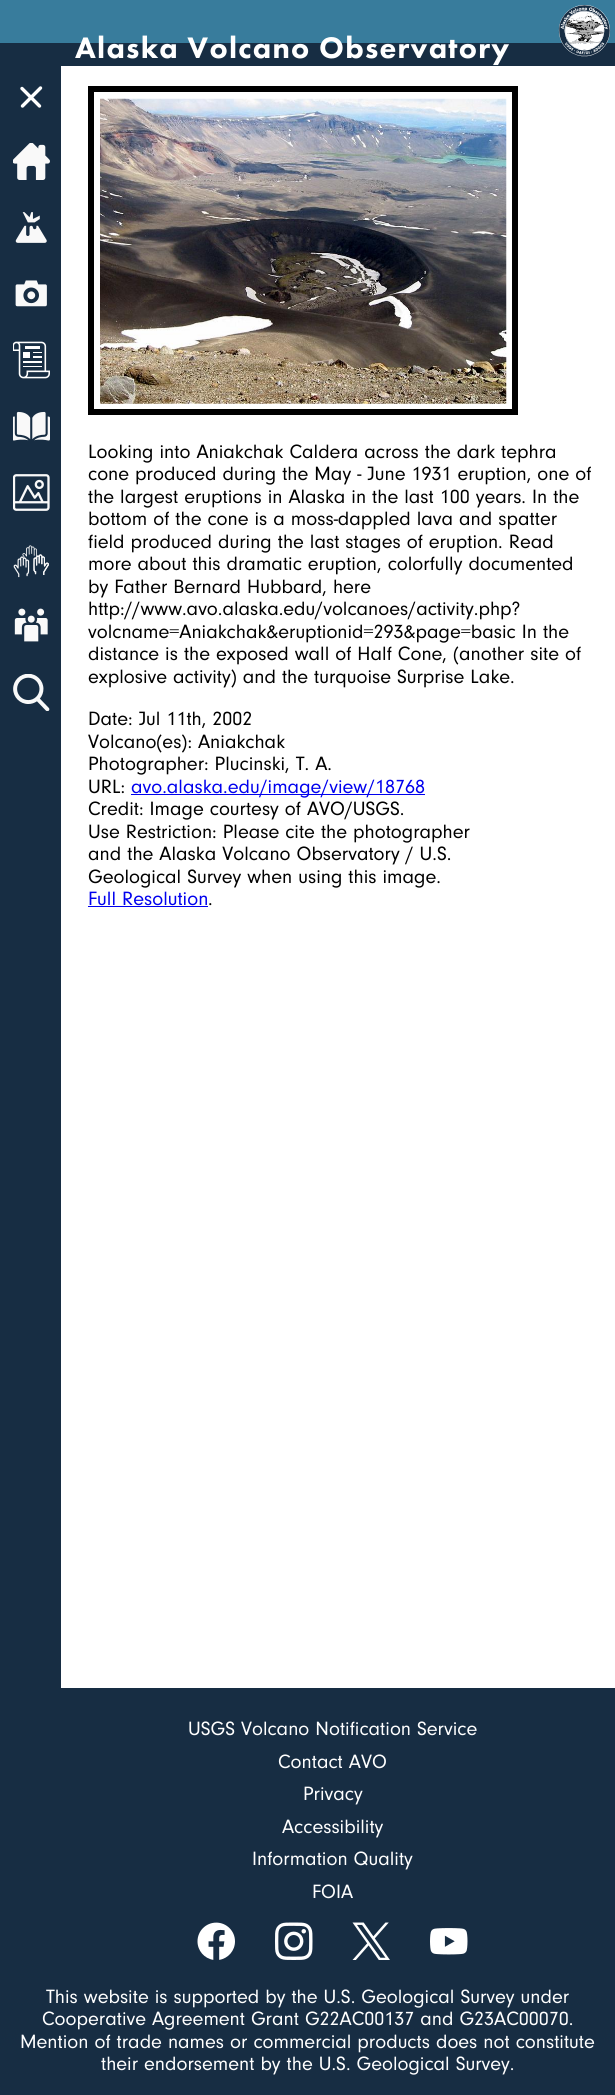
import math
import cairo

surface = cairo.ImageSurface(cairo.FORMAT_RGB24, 615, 2095)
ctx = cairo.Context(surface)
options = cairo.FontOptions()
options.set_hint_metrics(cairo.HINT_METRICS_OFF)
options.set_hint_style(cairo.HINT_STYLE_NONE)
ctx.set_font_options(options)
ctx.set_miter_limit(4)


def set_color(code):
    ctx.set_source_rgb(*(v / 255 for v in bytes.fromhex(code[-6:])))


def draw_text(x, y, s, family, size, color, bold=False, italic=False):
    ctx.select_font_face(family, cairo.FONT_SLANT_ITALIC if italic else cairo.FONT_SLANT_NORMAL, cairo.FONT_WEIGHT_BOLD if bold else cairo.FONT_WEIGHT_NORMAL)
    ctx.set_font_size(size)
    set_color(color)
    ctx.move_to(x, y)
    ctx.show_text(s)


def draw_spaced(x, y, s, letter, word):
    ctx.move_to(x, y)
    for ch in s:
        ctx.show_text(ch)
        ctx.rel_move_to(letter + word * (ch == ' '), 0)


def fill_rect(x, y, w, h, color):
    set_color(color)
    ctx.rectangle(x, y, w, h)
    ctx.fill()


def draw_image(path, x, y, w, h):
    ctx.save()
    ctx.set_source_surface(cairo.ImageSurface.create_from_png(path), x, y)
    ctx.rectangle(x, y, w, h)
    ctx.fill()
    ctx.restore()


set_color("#ffffff")
ctx.paint()
fill_rect(0, 43, 615, 23, "#172d43")
fill_rect(0, 0, 615, 43, "#387c9c")
ctx.select_font_face("Futura PT Black")
ctx.set_font_size(30.75)
set_color("#ffffff")
draw_spaced(75, 58, "Alaska Volcano Observatory", 1.25, 0)
draw_image("assets/img1.png", 558, 5, 53, 52)
fill_rect(0, 66, 61, 1622, "#172d43")
ctx.new_path()
ctx.move_to(40, 88.5)
ctx.line_to(22.5, 106)
ctx.move_to(22, 88.5)
ctx.line_to(39.5, 106)
ctx.move_to(40.5, 88)
ctx.line_to(23, 105.5)
set_color("#ffffff")
ctx.set_line_width(3.4)
ctx.set_line_cap(cairo.LINE_CAP_ROUND)
ctx.stroke()
draw_image("assets/img2.png", 13, 143, 37, 37)
draw_image("assets/img3.png", 15, 212, 32, 31)
draw_image("assets/img4.png", 15, 280, 32, 27)
draw_image("assets/img5.png", 13, 341, 37, 38)
draw_image("assets/img6.png", 13, 411, 37, 30)
draw_image("assets/img7.png", 13, 474, 37, 37)
draw_image("assets/img8.png", 13, 545, 36, 33)
draw_image("assets/img9.png", 14, 608, 34, 34)
draw_image("assets/img10.png", 13, 674, 37, 37)
ctx.rectangle(91, 89, 424, 323)
set_color("#000000")
ctx.set_line_width(6)
ctx.set_line_cap(cairo.LINE_CAP_BUTT)
ctx.stroke()
draw_image("assets/img11.png", 100, 98, 407, 306)
draw_text(88, 458, "Looking into Aniakchak Caldera across the dark tephra", "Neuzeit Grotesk", 20, "#000000")
draw_text(88, 480, "cone produced during the May - June 1931 eruption, one of", "Neuzeit Grotesk", 20, "#000000")
draw_text(88, 503, "the largest eruptions in Alaska in the last 100 years. In the", "Neuzeit Grotesk", 20, "#000000")
draw_text(88, 525, "bottom of the cone is a moss-dappled lava and spatter", "Neuzeit Grotesk", 20, "#000000")
draw_text(88, 548, "field produced during the last stages of eruption. Read", "Neuzeit Grotesk", 20, "#000000")
draw_text(88, 570, "more about this dramatic eruption, colorfully documented", "Neuzeit Grotesk", 20, "#000000")
draw_text(88, 593, "by Father Bernard Hubbard, here", "Neuzeit Grotesk", 20, "#000000")
draw_text(88, 615, "http://www.avo.alaska.edu/volcanoes/activity.php?", "Neuzeit Grotesk", 20, "#000000")
draw_text(88, 638, "volcname=Aniakchak&eruptionid=293&page=basic In the", "Neuzeit Grotesk", 20, "#000000")
draw_text(88, 660, "distance is the exposed wall of Half Cone, (another site of", "Neuzeit Grotesk", 20, "#000000")
draw_text(88, 683, "explosive activity) and the turquoise Surprise Lake.", "Neuzeit Grotesk", 20, "#000000")
draw_text(88, 725, "Date: Jul 11th, 2002", "Neuzeit Grotesk", 20, "#000000")
draw_text(88, 748, "Volcano(es): Aniakchak", "Neuzeit Grotesk", 20, "#000000")
draw_text(88, 770, "Photographer: Plucinski, T. A.", "Neuzeit Grotesk", 20, "#000000")
draw_text(88, 793, "URL:", "Neuzeit Grotesk", 20, "#000000")
fill_rect(131, 794, 294, 1, "#0000ee")
draw_text(131, 793, "avo.alaska.edu/image/view/18768", "Neuzeit Grotesk", 20, "#0000ee")
draw_text(88, 815, "Credit: Image courtesy of AVO/USGS.", "Neuzeit Grotesk", 20, "#000000")
draw_text(88, 838, "Use Restriction: Please cite the photographer", "Neuzeit Grotesk", 20, "#000000")
draw_text(88, 860, "and the Alaska Volcano Observatory / U.S.", "Neuzeit Grotesk", 20, "#000000")
draw_text(88, 883, "Geological Survey when using this image.", "Neuzeit Grotesk", 20, "#000000")
draw_text(88, 905, "Full Resolution", "Neuzeit Grotesk", 20, "#0000ee")
fill_rect(88, 906, 120, 1, "#0000ee")
draw_text(208, 905, ".", "Neuzeit Grotesk", 20, "#000000")
fill_rect(0, 1688, 615, 407, "#172d43")
draw_text(188, 1735, "USGS Volcano Notification Service", "Neuzeit Grotesk", 20, "#ffffff")
draw_text(278, 1768, "Contact AVO", "Neuzeit Grotesk", 20, "#ffffff")
draw_text(303, 1800, "Privacy", "Neuzeit Grotesk", 20, "#ffffff")
draw_text(282, 1833, "Accessibility", "Neuzeit Grotesk", 20, "#ffffff")
draw_text(252, 1865, "Information Quality", "Neuzeit Grotesk", 20, "#ffffff")
draw_text(312, 1898, "FOIA", "Neuzeit Grotesk", 20, "#ffffff")
draw_image("assets/img12.png", 197, 1922, 38, 38)
draw_image("assets/img13.png", 275, 1922, 38, 38)
draw_image("assets/img14.png", 352, 1922, 38, 38)
draw_image("assets/img15.png", 430, 1928, 38, 27)
draw_text(46, 2003, "This website is supported by the U.S. Geological Survey under", "Neuzeit Grotesk", 20, "#ffffff")
draw_text(42, 2025, "Cooperative Agreement Grant G22AC00137 and G23AC00070.", "Neuzeit Grotesk", 20, "#ffffff")
draw_text(20, 2048, "Mention of trade names or commercial products does not constitute", "Neuzeit Grotesk", 20, "#ffffff")
draw_text(101, 2070, "their endorsement by the U.S. Geological Survey.", "Neuzeit Grotesk", 20, "#ffffff")
surface.write_to_png("output.png")
